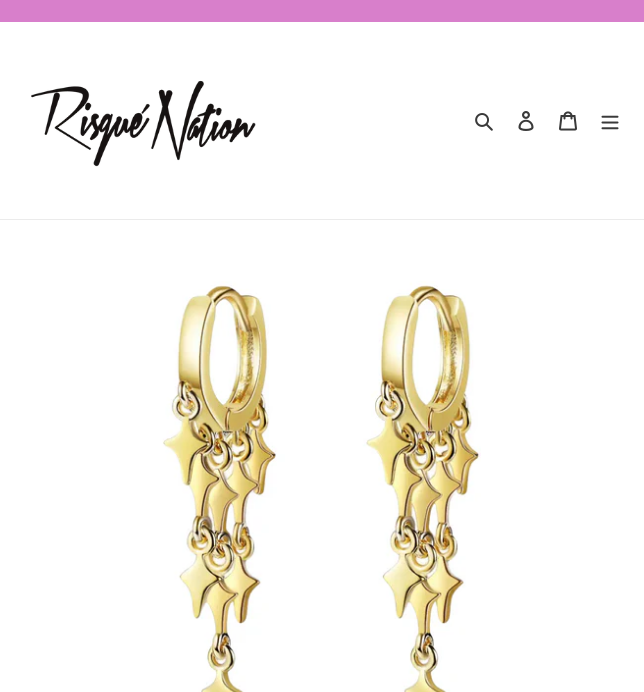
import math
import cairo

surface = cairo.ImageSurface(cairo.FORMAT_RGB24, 644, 692)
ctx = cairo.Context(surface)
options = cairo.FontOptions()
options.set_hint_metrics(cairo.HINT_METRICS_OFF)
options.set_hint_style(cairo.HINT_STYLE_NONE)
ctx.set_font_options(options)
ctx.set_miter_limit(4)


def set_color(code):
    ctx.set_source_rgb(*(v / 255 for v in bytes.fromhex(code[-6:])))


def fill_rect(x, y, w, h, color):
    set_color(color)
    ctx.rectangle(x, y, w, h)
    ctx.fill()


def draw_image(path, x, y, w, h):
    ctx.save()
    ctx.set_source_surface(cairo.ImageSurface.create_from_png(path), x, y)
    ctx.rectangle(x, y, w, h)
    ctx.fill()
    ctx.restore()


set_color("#ffffff")
ctx.paint()
fill_rect(0, 0, 644, 22, "#d87fcb")
fill_rect(0, 219, 644, 1, "#ebebeb")
draw_image("assets/img1.png", 31, 80, 225, 87)
draw_image("assets/img2.png", 475, 113, 18, 18)
draw_image("assets/img3.png", 518, 111, 16, 20)
draw_image("assets/img4.png", 559, 111, 18, 20)
draw_image("assets/img5.png", 601, 115, 18, 15)
draw_image("assets/img6.png", 162, 281, 319, 411)
surface.write_to_png("output.png")
